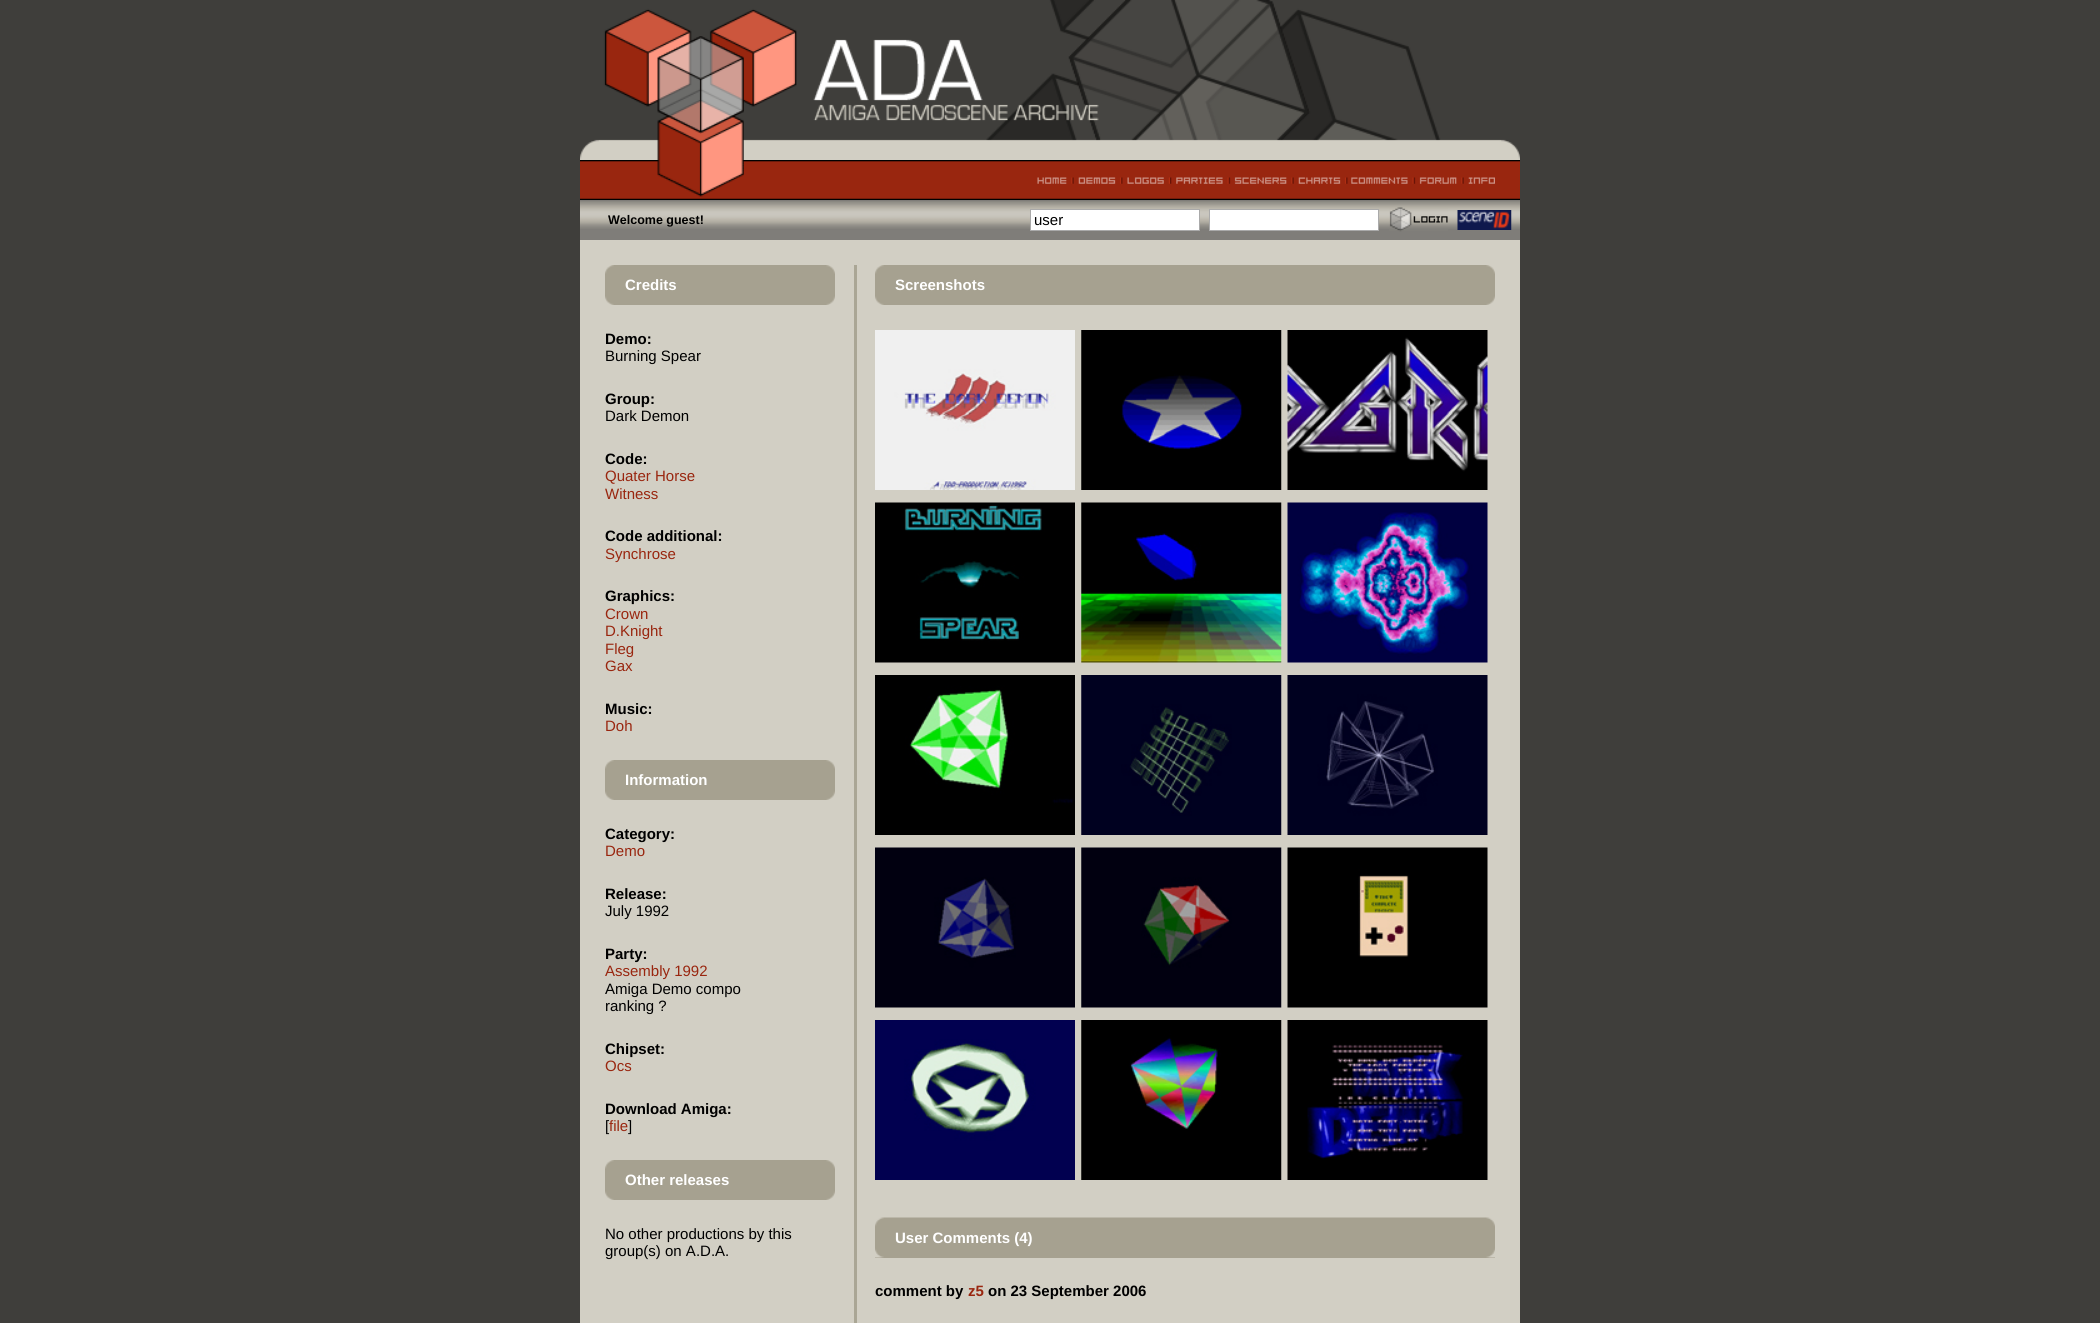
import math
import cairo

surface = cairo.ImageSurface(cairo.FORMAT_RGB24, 2100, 1323)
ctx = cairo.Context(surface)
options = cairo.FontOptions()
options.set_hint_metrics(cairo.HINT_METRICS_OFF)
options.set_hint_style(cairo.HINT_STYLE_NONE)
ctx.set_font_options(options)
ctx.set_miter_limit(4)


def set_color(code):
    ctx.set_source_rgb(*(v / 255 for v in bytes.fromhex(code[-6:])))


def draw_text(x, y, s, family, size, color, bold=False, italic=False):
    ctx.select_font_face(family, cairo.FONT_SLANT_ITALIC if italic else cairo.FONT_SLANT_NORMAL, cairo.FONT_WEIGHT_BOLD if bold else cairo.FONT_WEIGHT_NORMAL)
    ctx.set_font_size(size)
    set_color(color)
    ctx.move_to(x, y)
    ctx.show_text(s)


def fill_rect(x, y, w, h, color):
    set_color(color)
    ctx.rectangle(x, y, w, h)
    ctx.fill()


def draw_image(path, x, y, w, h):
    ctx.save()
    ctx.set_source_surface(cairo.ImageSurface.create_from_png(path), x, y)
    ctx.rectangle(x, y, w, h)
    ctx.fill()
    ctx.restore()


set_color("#3f3e3b")
ctx.paint()
draw_image("assets/img1.png", 580, 0, 940, 160)
fill_rect(580, 240, 940, 1083, "#d2cfc4")
draw_image("assets/img2.png", 580, 160, 940, 40)
draw_image("assets/img3.png", 1037, 177, 36, 7)
draw_image("assets/img4.png", 1072, 177, 50, 7)
draw_image("assets/img5.png", 1121, 177, 49, 7)
draw_image("assets/img6.png", 1170, 177, 59, 7)
draw_image("assets/img7.png", 1228, 177, 65, 7)
draw_image("assets/img8.png", 1292, 177, 55, 7)
draw_image("assets/img9.png", 1346, 177, 68, 7)
draw_image("assets/img10.png", 1413, 177, 50, 7)
draw_image("assets/img11.png", 1462, 177, 33, 7)
fill_rect(580, 200, 940, 40, "#7f7d79")
draw_image("assets/img12.png", 580, 201, 940, 28)
draw_text(608, 224, "Welcome guest!", "Liberation Sans", 12.5, "#000000", bold=True)
set_color("#ffffff")
ctx.rectangle(1030.5, 209.5, 169, 21)
ctx.fill_preserve()
set_color("#aaaaaa")
ctx.set_line_width(1)
ctx.stroke()
draw_text(1034, 225, "user", "Liberation Sans", 15, "#000000")
set_color("#ffffff")
ctx.rectangle(1209.5, 209.5, 169, 21)
ctx.fill_preserve()
set_color("#aaaaaa")
ctx.stroke()
draw_image("assets/img13.png", 1389, 207, 59, 25)
draw_image("assets/img14.png", 1457, 210, 55, 20)
draw_image("assets/img15.png", 605, 265, 230, 40)
draw_text(625, 290, "Credits", "Liberation Sans", 15, "#ffffff", bold=True)
draw_text(605, 344, "Demo:", "Liberation Sans", 15, "#000000", bold=True)
draw_text(605, 361, "Burning Spear", "Liberation Sans", 15, "#000000")
draw_text(605, 404, "Group:", "Liberation Sans", 15, "#000000", bold=True)
draw_text(605, 421, "Dark Demon", "Liberation Sans", 15, "#000000")
draw_text(605, 464, "Code:", "Liberation Sans", 15, "#000000", bold=True)
draw_text(605, 481, "Quater Horse", "Liberation Sans", 15, "#99260f")
draw_text(605, 499, "Witness", "Liberation Sans", 15, "#99260f")
draw_text(605, 541, "Code additional:", "Liberation Sans", 15, "#000000", bold=True)
draw_text(605, 559, "Synchrose", "Liberation Sans", 15, "#99260f")
draw_text(605, 601, "Graphics:", "Liberation Sans", 15, "#000000", bold=True)
draw_text(605, 619, "Crown", "Liberation Sans", 15, "#99260f")
draw_text(605, 636, "D.Knight", "Liberation Sans", 15, "#99260f")
draw_text(605, 654, "Fleg", "Liberation Sans", 15, "#99260f")
draw_text(605, 671, "Gax", "Liberation Sans", 15, "#99260f")
draw_text(605, 714, "Music:", "Liberation Sans", 15, "#000000", bold=True)
draw_text(605, 731, "Doh", "Liberation Sans", 15, "#99260f")
draw_image("assets/img15.png", 605, 760, 230, 40)
draw_text(625, 785, "Information", "Liberation Sans", 15, "#ffffff", bold=True)
draw_text(605, 839, "Category:", "Liberation Sans", 15, "#000000", bold=True)
draw_text(605, 856, "Demo", "Liberation Sans", 15, "#99260f")
draw_text(605, 899, "Release:", "Liberation Sans", 15, "#000000", bold=True)
draw_text(605, 916, "July 1992", "Liberation Sans", 15, "#000000")
draw_text(605, 959, "Party:", "Liberation Sans", 15, "#000000", bold=True)
draw_text(605, 976, "Assembly 1992", "Liberation Sans", 15, "#99260f")
draw_text(605, 994, "Amiga Demo compo", "Liberation Sans", 15, "#000000")
draw_text(605, 1011, "ranking ?", "Liberation Sans", 15, "#000000")
draw_text(605, 1054, "Chipset:", "Liberation Sans", 15, "#000000", bold=True)
draw_text(605, 1071, "Ocs", "Liberation Sans", 15, "#99260f")
draw_text(605, 1114, "Download Amiga:", "Liberation Sans", 15, "#000000", bold=True)
draw_text(605, 1131, "[", "Liberation Sans", 15, "#000000")
draw_text(609, 1131, "file", "Liberation Sans", 15, "#99260f")
draw_text(628, 1131, "]", "Liberation Sans", 15, "#000000")
draw_image("assets/img16.png", 605, 1160, 230, 40)
draw_text(625, 1185, "Other releases", "Liberation Sans", 15, "#ffffff", bold=True)
draw_text(605, 1239, "No other productions by this", "Liberation Sans", 15, "#000000")
draw_text(605, 1256, "group(s) on A.D.A.", "Liberation Sans", 15, "#000000")
fill_rect(854, 265, 3, 1058, "#aaa695")
draw_image("assets/img17.png", 875, 265, 620, 40)
draw_text(895, 290, "Screenshots", "Liberation Sans", 15, "#ffffff", bold=True)
draw_image("assets/img18.png", 875, 330, 200, 160)
draw_image("assets/img19.png", 1081, 330, 201, 160)
draw_image("assets/img20.png", 1287, 330, 201, 160)
draw_image("assets/img21.png", 875, 502, 200, 161)
draw_image("assets/img22.png", 1081, 502, 201, 161)
draw_image("assets/img23.png", 1287, 502, 201, 161)
draw_image("assets/img24.png", 875, 675, 200, 160)
draw_image("assets/img25.png", 1081, 675, 201, 160)
draw_image("assets/img26.png", 1287, 675, 201, 160)
draw_image("assets/img27.png", 875, 847, 200, 161)
draw_image("assets/img28.png", 1081, 847, 201, 161)
draw_image("assets/img29.png", 1287, 847, 201, 161)
draw_image("assets/img30.png", 875, 1020, 200, 160)
draw_image("assets/img31.png", 1081, 1020, 201, 160)
draw_image("assets/img32.png", 1287, 1020, 201, 160)
fill_rect(875, 1257, 620, 1, "#a6a190")
draw_image("assets/img33.png", 875, 1217, 620, 41)
draw_text(895, 1243, "User Comments (4)", "Liberation Sans", 15, "#ffffff", bold=True)
draw_text(875, 1296, "comment by", "Liberation Sans", 15, "#000000", bold=True)
draw_text(968, 1296, "z5", "Liberation Sans", 15, "#99260f", bold=True)
draw_text(988, 1296, "on 23 September 2006", "Liberation Sans", 15, "#000000", bold=True)
surface.write_to_png("output.png")
